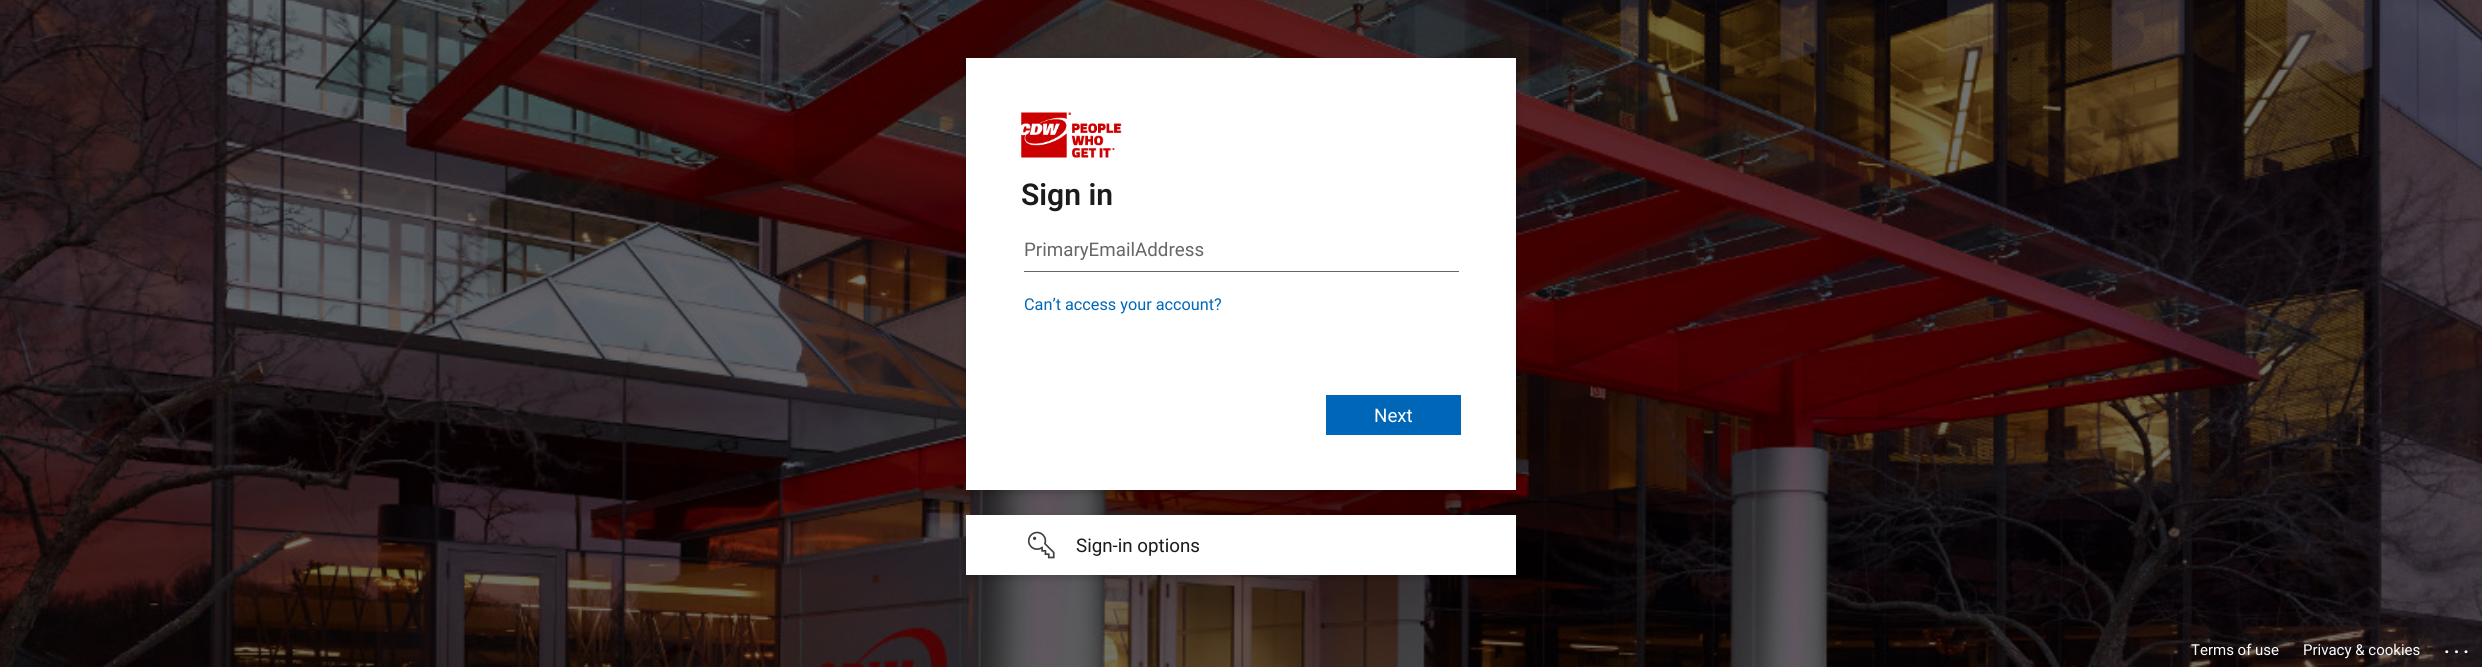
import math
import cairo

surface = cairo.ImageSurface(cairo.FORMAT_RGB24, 2482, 667)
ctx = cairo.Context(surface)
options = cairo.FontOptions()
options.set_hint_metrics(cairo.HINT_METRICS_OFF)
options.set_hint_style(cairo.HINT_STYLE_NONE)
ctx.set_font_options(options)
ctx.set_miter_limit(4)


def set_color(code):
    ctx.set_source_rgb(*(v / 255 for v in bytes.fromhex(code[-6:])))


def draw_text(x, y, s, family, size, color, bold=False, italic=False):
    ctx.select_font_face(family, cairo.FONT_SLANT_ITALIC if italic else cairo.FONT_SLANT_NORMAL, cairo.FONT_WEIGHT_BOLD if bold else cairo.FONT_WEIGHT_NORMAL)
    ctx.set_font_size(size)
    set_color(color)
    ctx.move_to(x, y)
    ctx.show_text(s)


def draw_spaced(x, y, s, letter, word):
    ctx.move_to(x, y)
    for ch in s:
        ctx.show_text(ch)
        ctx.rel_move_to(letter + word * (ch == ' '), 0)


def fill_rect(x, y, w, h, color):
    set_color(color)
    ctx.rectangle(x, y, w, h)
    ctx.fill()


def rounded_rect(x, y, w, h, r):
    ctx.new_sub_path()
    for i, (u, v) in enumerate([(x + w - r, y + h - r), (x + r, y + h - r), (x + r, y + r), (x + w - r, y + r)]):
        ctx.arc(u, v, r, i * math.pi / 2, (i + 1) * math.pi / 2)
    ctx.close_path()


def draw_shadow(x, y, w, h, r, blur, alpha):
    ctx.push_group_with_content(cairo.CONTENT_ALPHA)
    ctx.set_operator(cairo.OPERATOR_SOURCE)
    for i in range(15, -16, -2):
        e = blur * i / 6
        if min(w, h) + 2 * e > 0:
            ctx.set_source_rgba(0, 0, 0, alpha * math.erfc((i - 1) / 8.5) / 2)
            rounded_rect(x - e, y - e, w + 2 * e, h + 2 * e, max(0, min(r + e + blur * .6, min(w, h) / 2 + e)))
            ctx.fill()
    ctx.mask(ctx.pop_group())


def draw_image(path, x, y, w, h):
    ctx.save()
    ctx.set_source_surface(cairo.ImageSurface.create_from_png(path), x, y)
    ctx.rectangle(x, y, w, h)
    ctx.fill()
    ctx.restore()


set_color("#ffffff")
ctx.paint()
draw_image("assets/img1.png", 0, 0, 2482, 667)
set_color("#000000")
draw_shadow(966, 60, 550, 433, 0, 4, 0.2)
fill_rect(966, 58, 550, 432, "#ffffff")
draw_image("assets/img2.png", 1021, 112, 101, 46)
draw_text(1021, 205, "Sign in", "Roboto SemiBold", 30, "#1b1b1b")
fill_rect(1024, 271, 435, 1, "#666666")
draw_text(1024, 256, "PrimaryEmailAddress", "Roboto", 18.75, "#666666")
draw_text(1024, 310, "Can’t access your account?", "Roboto", 16.25, "#0067b8")
fill_rect(1326, 395, 135, 40, "#0067b8")
draw_text(1374, 422, "Next", "Roboto", 18.75, "#ffffff")
set_color("#000000")
draw_shadow(966, 518, 550, 60, 0, 4, 0.2)
fill_rect(966, 515, 550, 60, "#ffffff")
draw_image("assets/img3.png", 1027, 531, 28, 28)
draw_text(1076, 552, "Sign-in options", "Roboto", 18.75, "#1b1b1b")
draw_text(2191, 655, "Terms of use", "Roboto", 15, "#ffffff")
draw_text(2303, 655, "Privacy & cookies", "Roboto", 15, "#ffffff")
ctx.select_font_face("Roboto SemiBold")
ctx.set_font_size(20)
draw_spaced(2444, 653, "...", 4, 0)
surface.write_to_png("output.png")
